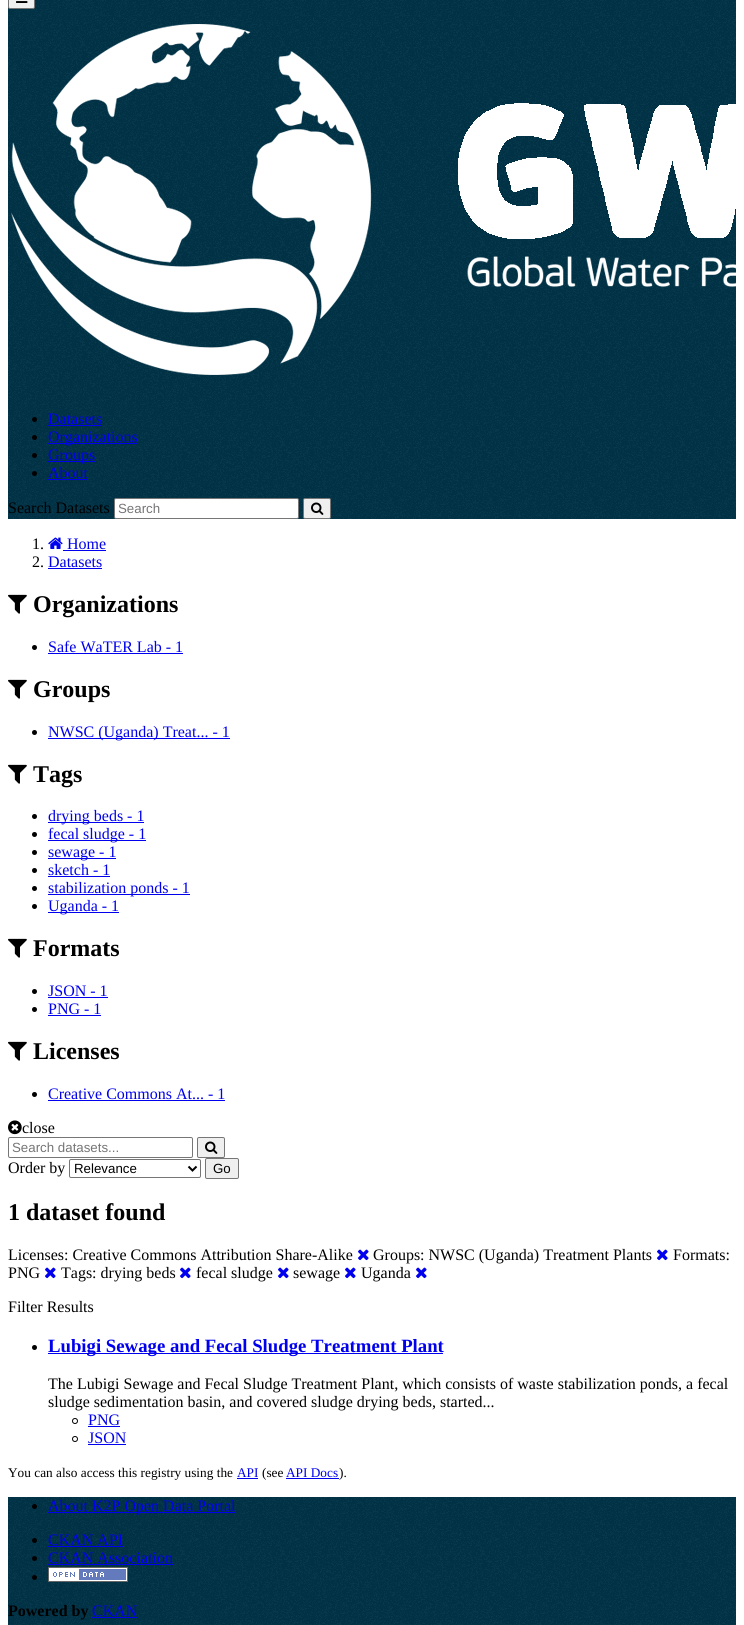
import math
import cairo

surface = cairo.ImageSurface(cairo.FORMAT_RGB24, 744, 1625)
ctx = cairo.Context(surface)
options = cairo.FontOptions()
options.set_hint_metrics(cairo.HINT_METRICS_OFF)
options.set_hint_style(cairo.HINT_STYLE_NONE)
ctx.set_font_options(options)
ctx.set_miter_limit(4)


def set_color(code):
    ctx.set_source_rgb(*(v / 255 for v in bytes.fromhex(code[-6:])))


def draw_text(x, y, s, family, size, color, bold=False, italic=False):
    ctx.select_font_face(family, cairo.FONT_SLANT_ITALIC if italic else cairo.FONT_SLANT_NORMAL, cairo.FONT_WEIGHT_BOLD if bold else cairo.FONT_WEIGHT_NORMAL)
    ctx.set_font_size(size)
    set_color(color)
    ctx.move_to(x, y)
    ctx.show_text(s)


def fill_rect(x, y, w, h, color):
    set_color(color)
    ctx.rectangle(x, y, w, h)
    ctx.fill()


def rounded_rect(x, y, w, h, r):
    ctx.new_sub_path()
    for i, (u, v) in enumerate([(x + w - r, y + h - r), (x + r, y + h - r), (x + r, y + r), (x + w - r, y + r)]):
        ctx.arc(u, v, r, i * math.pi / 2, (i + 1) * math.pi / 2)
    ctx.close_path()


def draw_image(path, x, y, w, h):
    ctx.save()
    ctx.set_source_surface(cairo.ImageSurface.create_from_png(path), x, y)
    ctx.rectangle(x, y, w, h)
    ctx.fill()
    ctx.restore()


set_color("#ffffff")
ctx.paint()
fill_rect(8, 0, 728, 519, "#003347")
draw_image("assets/img1.png", 8, 0, 728, 519)
set_color("#efefef")
rounded_rect(8.5, -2.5, 26, 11, 1.5)
ctx.fill_preserve()
set_color("#767676")
ctx.set_line_width(1)
ctx.stroke()
draw_image("assets/img2.png", 16, 1, 12, 2)
draw_image("assets/img3.png", 11, 24, 725, 351)
set_color("#000000")
ctx.arc(34.5, 419.5, 2.5, 0, 2 * math.pi)
ctx.fill()
draw_text(48, 424, "Datasets", "Liberation Serif", 16, "#0000ee")
fill_rect(48, 425, 54, 1, "#0000ee")
set_color("#000000")
ctx.new_path()
ctx.arc(34.5, 437.5, 2.5, 0, 2 * math.pi)
ctx.fill()
fill_rect(48, 443, 90, 1, "#0000ee")
draw_text(48, 442, "Organizations", "Liberation Serif", 16, "#0000ee")
set_color("#000000")
ctx.new_path()
ctx.arc(34.5, 455.5, 2.5, 0, 2 * math.pi)
ctx.fill()
fill_rect(48, 461, 47, 1, "#0000ee")
draw_text(48, 460, "Groups", "Liberation Serif", 16, "#0000ee")
set_color("#000000")
ctx.new_path()
ctx.arc(34.5, 473.5, 2.5, 0, 2 * math.pi)
ctx.fill()
draw_text(48, 478, "About", "Liberation Serif", 16, "#0000ee")
fill_rect(48, 479, 40, 1, "#0000ee")
draw_text(8, 513, "Search Datasets", "Liberation Serif", 16, "#000000")
set_color("#ffffff")
rounded_rect(114.5, 498.5, 184, 20, 1.5)
ctx.fill_preserve()
set_color("#767676")
ctx.stroke()
draw_text(118, 513, "Search", "Liberation Sans", 13.3, "#757575")
set_color("#efefef")
rounded_rect(303.5, 498.5, 27, 20, 1.5)
ctx.fill_preserve()
set_color("#767676")
ctx.stroke()
draw_image("assets/img4.png", 311, 502, 13, 13)
draw_text(32, 549, "1.", "Liberation Serif", 16, "#000000")
draw_image("assets/img5.png", 48, 537, 15, 12)
draw_text(67, 549, "Home", "Liberation Serif", 16, "#0000ee")
fill_rect(63, 550, 43, 1, "#0000ee")
draw_text(32, 567, "2.", "Liberation Serif", 16, "#000000")
draw_text(48, 567, "Datasets", "Liberation Serif", 16, "#0000ee")
fill_rect(48, 568, 54, 1, "#0000ee")
draw_image("assets/img6.png", 8, 594, 19, 20)
draw_text(33, 612, "Organizations", "Liberation Serif", 24, "#000000", bold=True)
ctx.new_path()
ctx.arc(34.5, 647.5, 2.5, 0, 2 * math.pi)
ctx.fill()
draw_text(48, 652, "Safe WaTER Lab - 1", "Liberation Serif", 16, "#0000ee")
fill_rect(48, 653, 135, 1, "#0000ee")
draw_image("assets/img6.png", 8, 679, 19, 20)
draw_text(33, 697, "Groups", "Liberation Serif", 24, "#000000", bold=True)
ctx.new_path()
ctx.arc(34.5, 732.5, 2.5, 0, 2 * math.pi)
ctx.fill()
fill_rect(48, 738, 182, 1, "#0000ee")
draw_text(48, 737, "NWSC (Uganda) Treat... - 1", "Liberation Serif", 16, "#0000ee")
draw_image("assets/img6.png", 8, 764, 19, 20)
draw_text(33, 782, "Tags", "Liberation Serif", 24, "#000000", bold=True)
ctx.new_path()
ctx.arc(34.5, 816.5, 2.5, 0, 2 * math.pi)
ctx.fill()
fill_rect(48, 822, 96, 1, "#0000ee")
draw_text(48, 821, "drying beds - 1", "Liberation Serif", 16, "#0000ee")
set_color("#000000")
ctx.new_path()
ctx.arc(34.5, 834.5, 2.5, 0, 2 * math.pi)
ctx.fill()
fill_rect(48, 840, 98, 1, "#0000ee")
draw_text(48, 839, "fecal sludge - 1", "Liberation Serif", 16, "#0000ee")
set_color("#000000")
ctx.new_path()
ctx.arc(34.5, 852.5, 2.5, 0, 2 * math.pi)
ctx.fill()
fill_rect(48, 858, 68, 1, "#0000ee")
draw_text(48, 857, "sewage - 1", "Liberation Serif", 16, "#0000ee")
set_color("#000000")
ctx.new_path()
ctx.arc(34.5, 870.5, 2.5, 0, 2 * math.pi)
ctx.fill()
draw_text(48, 875, "sketch - 1", "Liberation Serif", 16, "#0000ee")
fill_rect(48, 876, 62, 1, "#0000ee")
set_color("#000000")
ctx.new_path()
ctx.arc(34.5, 888.5, 2.5, 0, 2 * math.pi)
ctx.fill()
fill_rect(48, 894, 142, 1, "#0000ee")
draw_text(48, 893, "stabilization ponds - 1", "Liberation Serif", 16, "#0000ee")
set_color("#000000")
ctx.new_path()
ctx.arc(34.5, 906.5, 2.5, 0, 2 * math.pi)
ctx.fill()
fill_rect(48, 912, 71, 1, "#0000ee")
draw_text(48, 911, "Uganda - 1", "Liberation Serif", 16, "#0000ee")
draw_image("assets/img6.png", 8, 938, 19, 20)
draw_text(33, 956, "Formats", "Liberation Serif", 24, "#000000", bold=True)
ctx.new_path()
ctx.arc(34.5, 991.5, 2.5, 0, 2 * math.pi)
ctx.fill()
draw_text(48, 996, "JSON - 1", "Liberation Serif", 16, "#0000ee")
fill_rect(48, 997, 60, 1, "#0000ee")
set_color("#000000")
ctx.new_path()
ctx.arc(34.5, 1009.5, 2.5, 0, 2 * math.pi)
ctx.fill()
draw_text(48, 1014, "PNG - 1", "Liberation Serif", 16, "#0000ee")
fill_rect(48, 1015, 53, 1, "#0000ee")
draw_image("assets/img6.png", 8, 1041, 19, 20)
draw_text(33, 1059, "Licenses", "Liberation Serif", 24, "#000000", bold=True)
ctx.new_path()
ctx.arc(34.5, 1094.5, 2.5, 0, 2 * math.pi)
ctx.fill()
draw_text(48, 1099, "Creative Commons At... - 1", "Liberation Serif", 16, "#0000ee")
fill_rect(48, 1100, 177, 1, "#0000ee")
draw_image("assets/img7.png", 8, 1120, 14, 15)
draw_text(22, 1133, "close", "Liberation Serif", 16, "#000000")
rounded_rect(8.5, 1137.5, 184, 20, 1.5)
set_color("#767676")
ctx.stroke()
draw_text(12, 1152, "Search datasets...", "Liberation Sans", 13.3, "#757575")
set_color("#efefef")
rounded_rect(197.5, 1137.5, 27, 20, 1.5)
ctx.fill_preserve()
set_color("#767676")
ctx.stroke()
draw_image("assets/img4.png", 205, 1141, 13, 13)
draw_text(8, 1173, "Order by", "Liberation Serif", 16, "#000000")
rounded_rect(69.5, 1159.5, 131, 18, 1.5)
set_color("#767676")
ctx.stroke()
ctx.new_path()
ctx.move_to(188.5, 1166.5)
ctx.line_to(192.5, 1170.5)
ctx.line_to(196.5, 1166.5)
set_color("#000000")
ctx.set_line_width(2)
ctx.stroke()
draw_text(74, 1173, "Relevance", "Liberation Sans", 13.3, "#000000")
set_color("#efefef")
rounded_rect(205.5, 1158.5, 33, 20, 1.5)
ctx.fill_preserve()
set_color("#767676")
ctx.set_line_width(1)
ctx.stroke()
draw_text(213, 1173, "Go", "Liberation Sans", 13.3, "#000000")
draw_text(8, 1220, "1 dataset found", "Liberation Serif", 24, "#000000", bold=True)
draw_text(8, 1260, "Licenses: Creative Commons Attribution Share-Alike", "Liberation Serif", 16, "#000000")
draw_image("assets/img8.png", 358, 1249, 11, 12)
draw_text(373, 1260, "Groups: NWSC (Uganda) Treatment Plants", "Liberation Serif", 16, "#000000")
draw_image("assets/img8.png", 657, 1249, 11, 12)
draw_text(673, 1260, "Formats:", "Liberation Serif", 16, "#000000")
draw_text(8, 1278, "PNG", "Liberation Serif", 16, "#000000")
draw_image("assets/img8.png", 45, 1267, 11, 12)
draw_text(61, 1278, "Tags: drying beds", "Liberation Serif", 16, "#000000")
draw_image("assets/img8.png", 180, 1267, 11, 12)
draw_text(196, 1278, "fecal sludge", "Liberation Serif", 16, "#000000")
draw_image("assets/img8.png", 278, 1267, 11, 12)
draw_text(293, 1278, "sewage", "Liberation Serif", 16, "#000000")
draw_image("assets/img8.png", 345, 1267, 11, 12)
draw_text(361, 1278, "Uganda", "Liberation Serif", 16, "#000000")
draw_image("assets/img8.png", 416, 1267, 11, 12)
draw_text(8, 1312, "Filter Results", "Liberation Serif", 16, "#000000")
ctx.new_path()
ctx.arc(34.5, 1347.5, 2.5, 0, 2 * math.pi)
ctx.fill()
fill_rect(48, 1353, 395, 1, "#0000ee")
draw_text(48, 1352, "Lubigi Sewage and Fecal Sludge Treatment Plant", "Liberation Serif", 18.75, "#0000ee", bold=True)
draw_text(48, 1389, "The Lubigi Sewage and Fecal Sludge Treatment Plant, which consists of waste stabilization ponds, a fecal", "Liberation Serif", 16, "#000000")
draw_text(48, 1407, "sludge sedimentation basin, and covered sludge drying beds, started...", "Liberation Serif", 16, "#000000")
ctx.new_path()
ctx.arc(75, 1421, 2.5, 0, 2 * math.pi)
ctx.stroke()
draw_text(88, 1425, "PNG", "Liberation Serif", 16, "#0000ee")
fill_rect(88, 1426, 32, 1, "#0000ee")
ctx.new_path()
ctx.arc(75, 1439, 2.5, 0, 2 * math.pi)
set_color("#000000")
ctx.stroke()
draw_text(88, 1443, "JSON", "Liberation Serif", 16, "#0000ee")
fill_rect(88, 1444, 38, 1, "#0000ee")
draw_text(8, 1477, "You can also access this registry using the", "Liberation Serif", 13.3, "#000000")
draw_text(237, 1477, "API", "Liberation Serif", 13.3, "#0000ee")
fill_rect(237, 1478, 21, 1, "#0000ee")
draw_text(262, 1477, "(see", "Liberation Serif", 13.3, "#000000")
draw_text(286, 1477, "API Docs", "Liberation Serif", 13.3, "#0000ee")
fill_rect(286, 1478, 53, 1, "#0000ee")
draw_text(339, 1477, ").", "Liberation Serif", 13.3, "#000000")
fill_rect(8, 1497, 728, 128, "#003347")
draw_image("assets/img9.png", 8, 1497, 728, 128)
set_color("#000000")
ctx.arc(34.5, 1506.5, 2.5, 0, 2 * math.pi)
ctx.fill()
fill_rect(48, 1512, 188, 1, "#0000ee")
draw_text(48, 1511, "About K2P Open Data Portal", "Liberation Serif", 16, "#0000ee")
set_color("#000000")
ctx.new_path()
ctx.arc(34.5, 1540.5, 2.5, 0, 2 * math.pi)
ctx.fill()
draw_text(48, 1545, "CKAN API", "Liberation Serif", 16, "#0000ee")
fill_rect(48, 1546, 75, 1, "#0000ee")
set_color("#000000")
ctx.new_path()
ctx.arc(34.5, 1558.5, 2.5, 0, 2 * math.pi)
ctx.fill()
draw_text(48, 1563, "CKAN Association", "Liberation Serif", 16, "#0000ee")
fill_rect(48, 1564, 125, 1, "#0000ee")
set_color("#000000")
ctx.new_path()
ctx.arc(34.5, 1577.5, 2.5, 0, 2 * math.pi)
ctx.fill()
draw_image("assets/img10.png", 48, 1567, 80, 15)
draw_text(8, 1616, "Powered by", "Liberation Serif", 16, "#000000", bold=True)
draw_text(92, 1616, "CKAN", "Liberation Serif", 16, "#0000ee")
fill_rect(92, 1617, 46, 1, "#0000ee")
surface.write_to_png("output.png")
